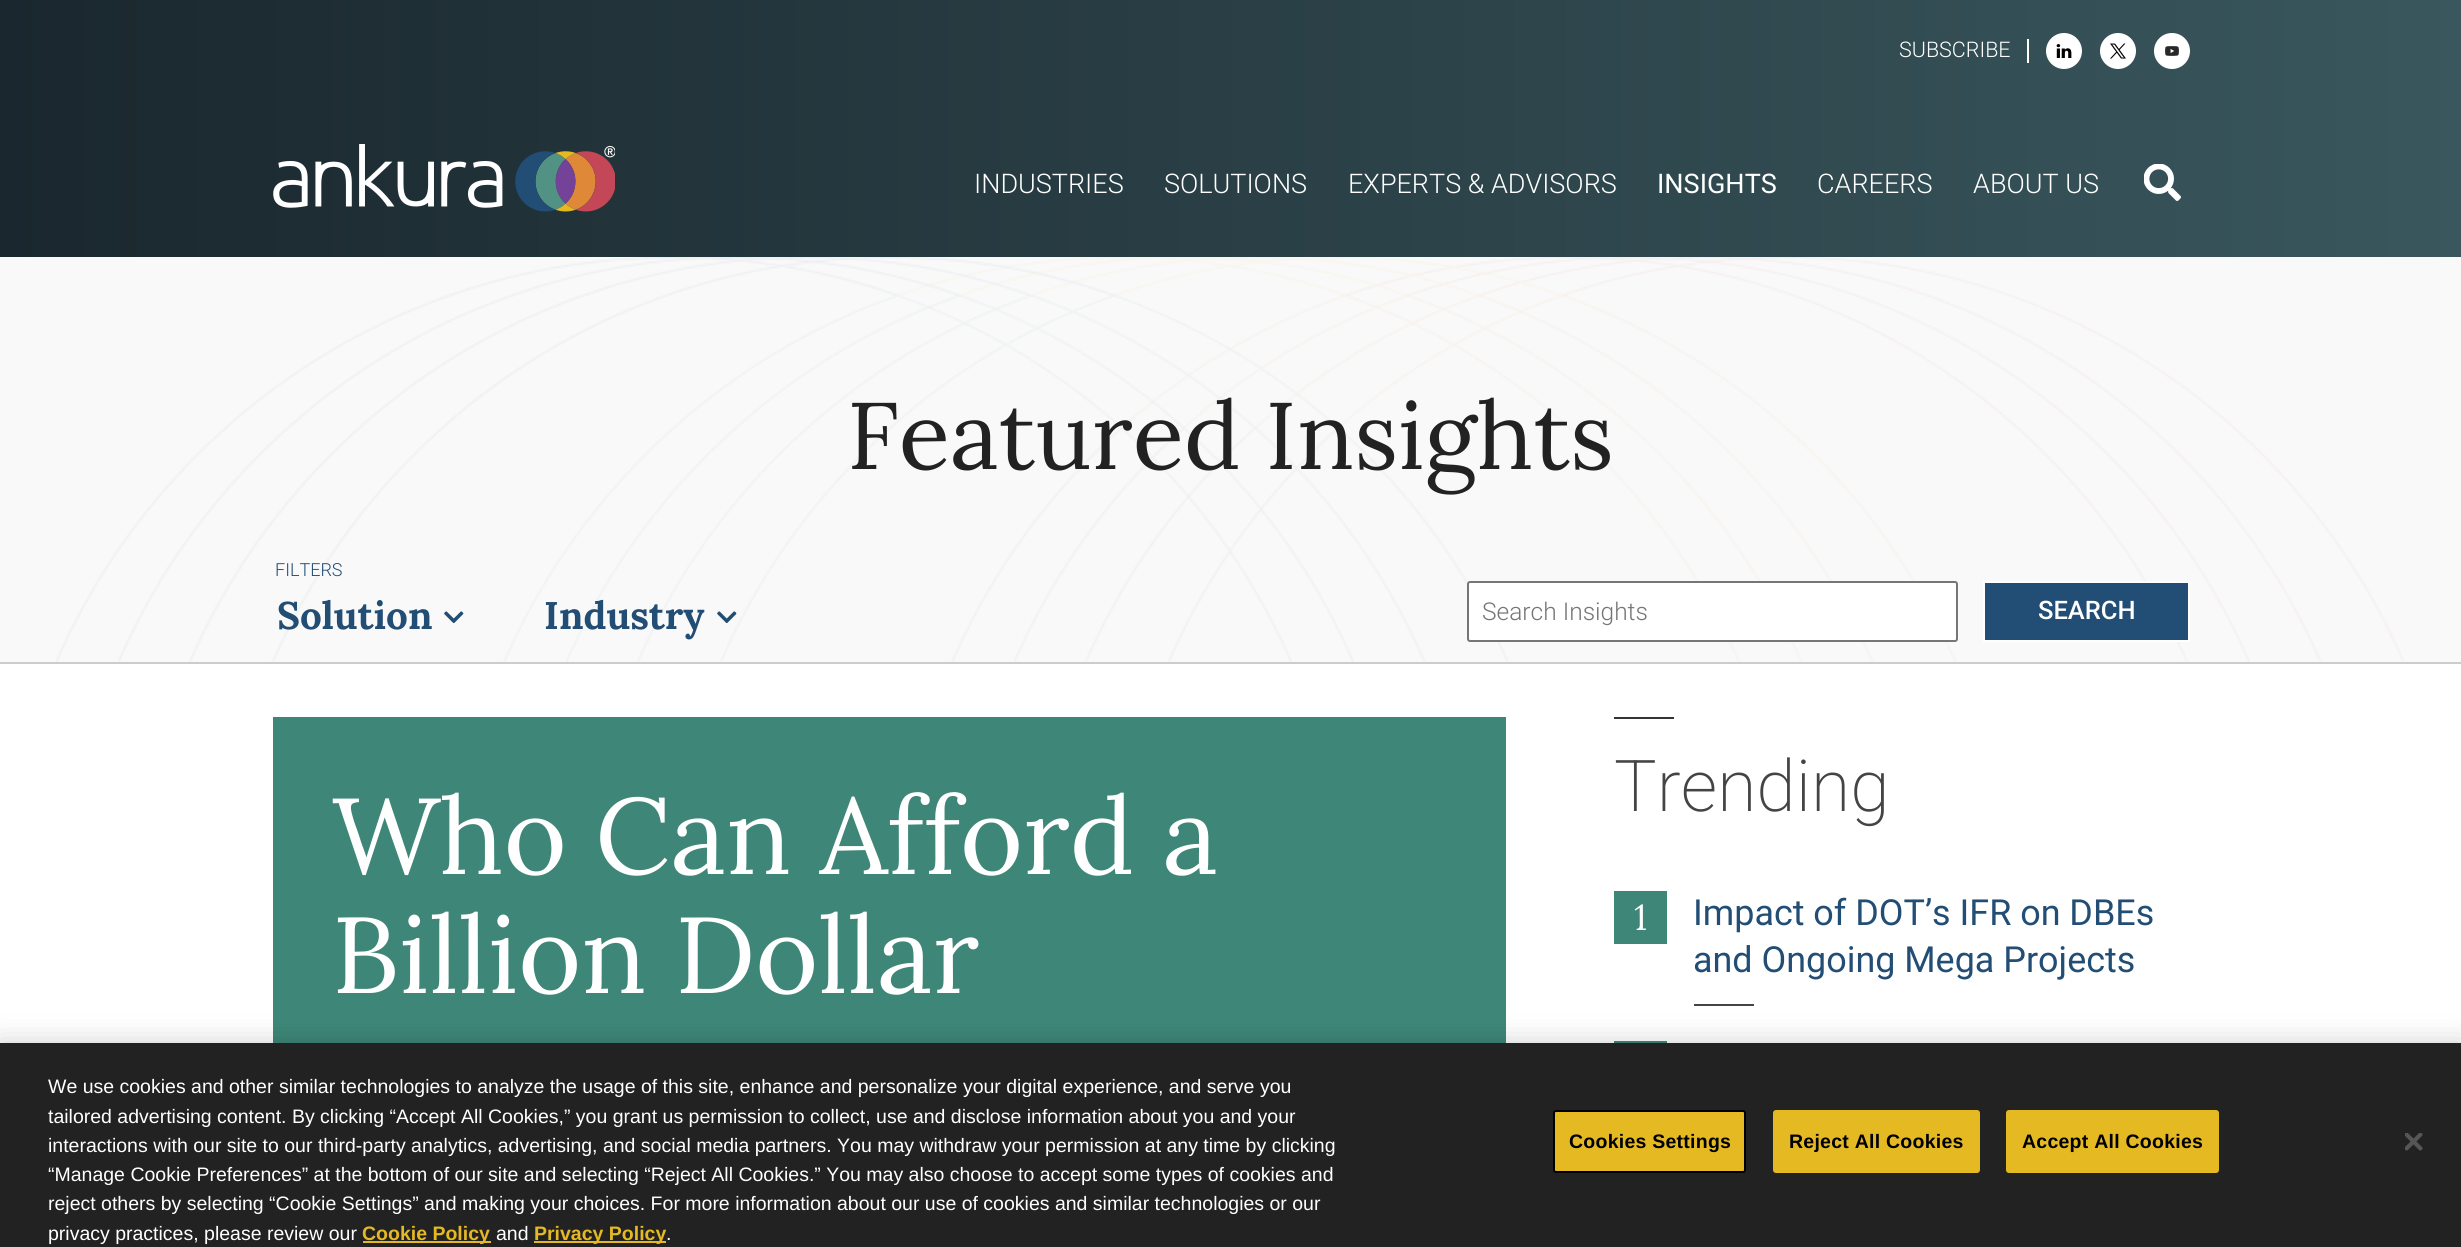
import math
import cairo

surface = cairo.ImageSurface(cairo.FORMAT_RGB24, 2461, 1247)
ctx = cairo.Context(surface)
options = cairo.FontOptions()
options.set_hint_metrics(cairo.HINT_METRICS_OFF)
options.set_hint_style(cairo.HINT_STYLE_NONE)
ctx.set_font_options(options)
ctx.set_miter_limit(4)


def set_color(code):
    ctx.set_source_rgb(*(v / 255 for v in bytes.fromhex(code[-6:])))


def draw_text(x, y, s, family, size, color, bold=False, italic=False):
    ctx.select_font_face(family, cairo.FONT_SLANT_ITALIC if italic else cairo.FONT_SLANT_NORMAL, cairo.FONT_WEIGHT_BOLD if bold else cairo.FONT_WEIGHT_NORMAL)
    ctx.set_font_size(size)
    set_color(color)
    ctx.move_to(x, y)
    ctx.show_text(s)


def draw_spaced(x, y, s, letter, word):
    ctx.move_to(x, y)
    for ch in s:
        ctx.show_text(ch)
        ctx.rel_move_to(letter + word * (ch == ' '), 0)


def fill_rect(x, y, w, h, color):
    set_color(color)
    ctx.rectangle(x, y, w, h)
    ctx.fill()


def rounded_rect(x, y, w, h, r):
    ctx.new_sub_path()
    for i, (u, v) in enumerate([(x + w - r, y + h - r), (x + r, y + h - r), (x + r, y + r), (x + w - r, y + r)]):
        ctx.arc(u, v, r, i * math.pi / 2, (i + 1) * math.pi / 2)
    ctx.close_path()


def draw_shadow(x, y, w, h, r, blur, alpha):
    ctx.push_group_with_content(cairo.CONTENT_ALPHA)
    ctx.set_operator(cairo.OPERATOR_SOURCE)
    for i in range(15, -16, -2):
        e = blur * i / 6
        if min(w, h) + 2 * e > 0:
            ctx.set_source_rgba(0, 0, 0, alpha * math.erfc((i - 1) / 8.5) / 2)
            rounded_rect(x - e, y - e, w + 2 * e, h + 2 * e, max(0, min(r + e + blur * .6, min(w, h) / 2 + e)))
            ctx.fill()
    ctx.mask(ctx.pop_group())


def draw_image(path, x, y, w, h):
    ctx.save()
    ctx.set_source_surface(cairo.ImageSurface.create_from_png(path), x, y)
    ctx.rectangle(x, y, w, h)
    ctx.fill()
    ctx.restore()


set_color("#ffffff")
ctx.paint()
gradient = cairo.LinearGradient(0, 128, 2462, 128)
gradient.add_color_stop_rgba(0, 0.102, 0.153, 0.18, 1)
gradient.add_color_stop_rgba(1, 0.224, 0.341, 0.365, 1)
ctx.set_source(gradient)
ctx.rectangle(0, 0, 2461, 257)
ctx.fill()
fill_rect(2027, 39, 2, 24, "#ffffff")
draw_text(1899, 57, "SUBSCRIBE", "Roboto Light", 21.5, "#ffffff")
ctx.new_path()
ctx.arc(2064, 51, 18, 0, 2 * math.pi)
ctx.fill()
draw_image("assets/img1.png", 2056, 44, 16, 14)
ctx.arc(2118, 51, 18, 0, 2 * math.pi)
ctx.fill()
draw_image("assets/img2.png", 2110, 43, 16, 16)
ctx.arc(2172, 51, 18, 0, 2 * math.pi)
ctx.fill()
draw_image("assets/img3.png", 2165, 46, 14, 10)
draw_image("assets/img4.png", 273, 144, 342, 68)
draw_text(974, 193, "INDUSTRIES", "Roboto Light", 27, "#ffffff")
draw_text(1164, 193, "SOLUTIONS", "Roboto Light", 27, "#ffffff")
draw_text(1348, 193, "EXPERTS & ADVISORS", "Roboto Light", 27, "#ffffff")
draw_text(1657, 193, "INSIGHTS", "Roboto", 27, "#ffffff")
draw_text(1817, 193, "CAREERS", "Roboto Light", 27, "#ffffff")
draw_text(1973, 193, "ABOUT US", "Roboto Light", 27, "#ffffff")
draw_image("assets/img5.png", 2144, 164, 37, 37)
fill_rect(0, 257, 2461, 405, "#f9f9f9")
draw_image("assets/img6.png", 56, 257, 2348, 405)
draw_text(847, 469, "Featured Insights", "Lora", 94.5, "#222222")
draw_text(275, 576, "FILTERS", "Roboto Light", 18, "#224d74")
draw_text(277, 629, "Solution", "Lora", 38.5, "#224d74", bold=True)
draw_image("assets/img7.png", 444, 611, 20, 13)
draw_text(544, 629, "Industry", "Lora", 38.5, "#224d74", bold=True)
draw_image("assets/img8.png", 717, 611, 20, 13)
set_color("#ffffff")
rounded_rect(1468, 582, 489, 59, 2)
ctx.fill_preserve()
set_color("#767676")
ctx.stroke()
draw_text(1482, 620, "Search Insights", "Roboto Light", 24.5, "#757575")
set_color("#224d74")
ctx.rectangle(1984, 582, 205, 59)
ctx.fill_preserve()
set_color("#ffffff")
ctx.stroke()
draw_text(2038, 619, "SEARCH", "Roboto Medium", 25.5, "#ffffff")
fill_rect(0, 662, 2461, 2, "#cccccc")
fill_rect(273, 717, 1233, 326, "#3e8778")
draw_text(332, 874, "Who Can Afford a", "Lora", 107.75, "#ffffff")
draw_text(332, 993, "Billion Dollar", "Lora", 107.75, "#ffffff")
fill_rect(1614, 717, 60, 2, "#333333")
draw_text(1614, 811, "Trending", "Roboto ExtraLight", 71.5, "#444444")
fill_rect(1614, 891, 53, 53, "#3e8778")
draw_text(1634, 930, "1", "Lora", 35.9, "#ffffff")
draw_text(1693, 925, "Impact of DOT’s IFR on DBEs", "Roboto", 35.9, "#224d74")
draw_text(1693, 972, "and Ongoing Mega Projects", "Roboto", 35.9, "#224d74")
fill_rect(1694, 1004, 60, 2, "#444444")
fill_rect(1614, 1041, 53, 2, "#3e8778")
set_color("#000000")
draw_shadow(0, 1043, 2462, 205, 0, 13.5, 0.2)
fill_rect(0, 1043, 2461, 204, "#222222")
draw_text(48, 1093, "We use cookies and other similar technologies to analyze the usage of this site, enhance and personalize your digital experience, and serve you", "Liberation Sans", 19.5, "#ffffff")
draw_text(48, 1123, "tailored advertising content. By clicking “Accept All Cookies,” you grant us permission to collect, use and disclose information about you and your", "Liberation Sans", 19.5, "#ffffff")
draw_text(48, 1152, "interactions with our site to our third-party analytics, advertising, and social media partners. You may withdraw your permission at any time by clicking", "Liberation Sans", 19.5, "#ffffff")
draw_text(48, 1181, "“Manage Cookie Preferences” at the bottom of our site and selecting “Reject All Cookies.” You may also choose to accept some types of cookies and", "Liberation Sans", 19.5, "#ffffff")
draw_text(48, 1210, "reject others by selecting “Cookie Settings” and making your choices. For more information about our use of cookies and similar technologies or our", "Liberation Sans", 19.5, "#ffffff")
draw_text(48, 1240, "privacy practices, please review our", "Liberation Sans", 19.5, "#ffffff")
fill_rect(363, 1241, 128, 2, "#e5b922")
draw_text(362, 1240, "Cookie Policy", "Liberation Sans", 19.5, "#e5b922", bold=True)
draw_text(496, 1240, "and", "Liberation Sans", 19.5, "#ffffff")
fill_rect(534, 1241, 132, 2, "#e5b922")
draw_text(534, 1240, "Privacy Policy", "Liberation Sans", 19.5, "#e5b922", bold=True)
draw_text(666, 1240, ".", "Liberation Sans", 19.5, "#ffffff")
set_color("#e5b922")
rounded_rect(1554, 1111, 191, 61, 2)
ctx.fill_preserve()
set_color("#000000")
ctx.stroke()
ctx.select_font_face("Liberation Sans", cairo.FONT_SLANT_NORMAL, cairo.FONT_WEIGHT_BOLD)
draw_spaced(1569, 1148, "Cookies Settings", 0.25, 0)
set_color("#e5b922")
rounded_rect(1774, 1111, 205, 61, 2)
ctx.fill_preserve()
ctx.stroke()
set_color("#000000")
draw_spaced(1789, 1148, "Reject All Cookies", 0.25, 0)
set_color("#e5b922")
rounded_rect(2007, 1111, 211, 61, 2)
ctx.fill_preserve()
ctx.stroke()
set_color("#000000")
draw_spaced(2022, 1148, "Accept All Cookies", 0.25, 0)
draw_image("assets/img9.png", 2405, 1133, 18, 18)
surface.write_to_png("output.png")
